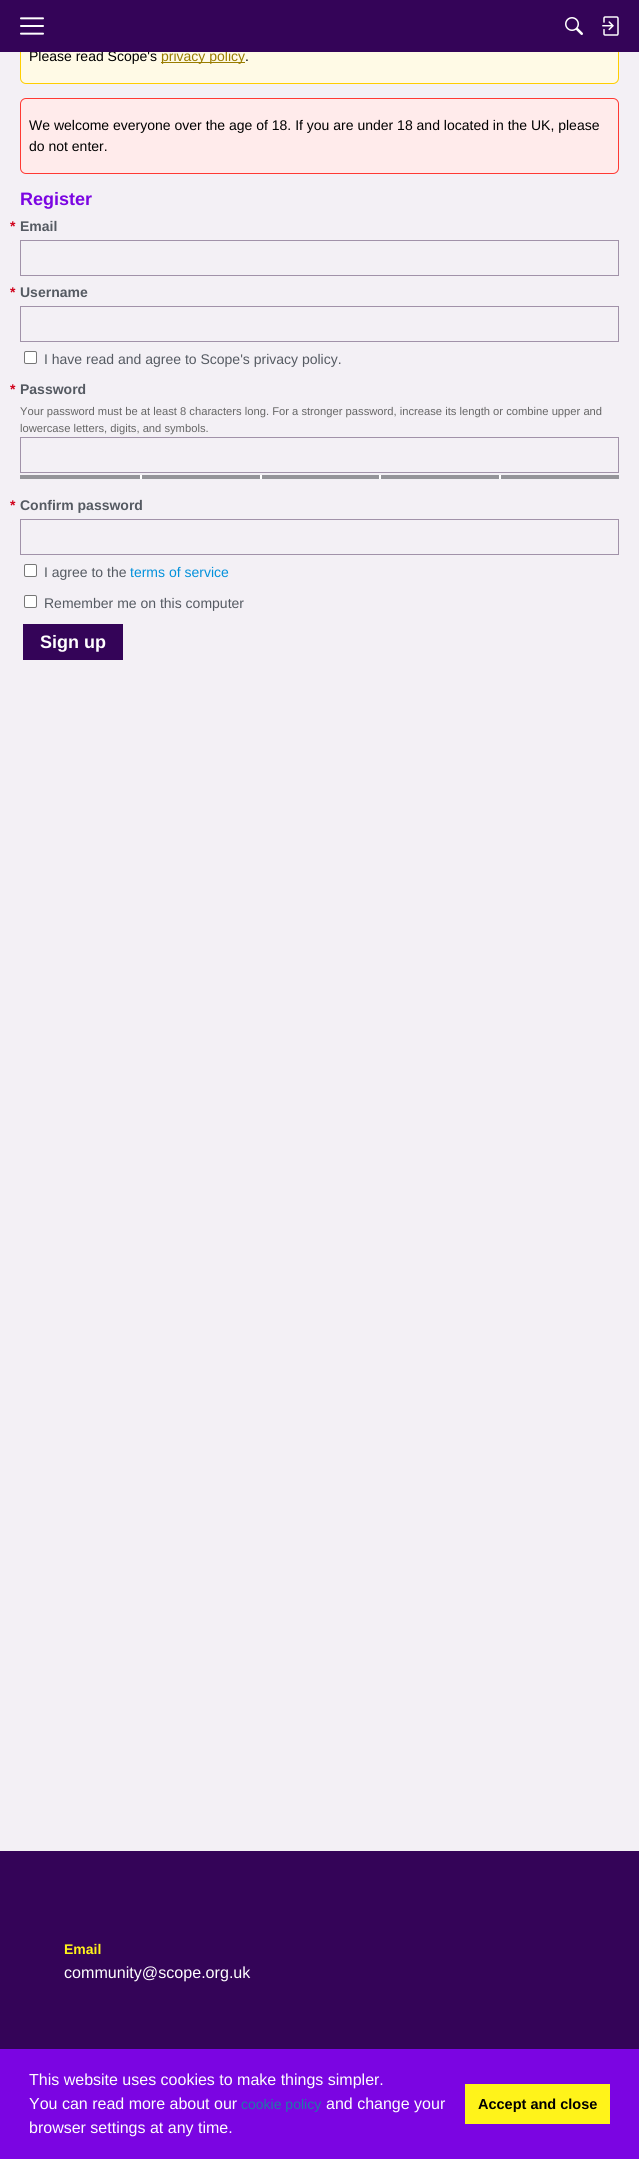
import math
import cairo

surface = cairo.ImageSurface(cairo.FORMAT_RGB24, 639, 2159)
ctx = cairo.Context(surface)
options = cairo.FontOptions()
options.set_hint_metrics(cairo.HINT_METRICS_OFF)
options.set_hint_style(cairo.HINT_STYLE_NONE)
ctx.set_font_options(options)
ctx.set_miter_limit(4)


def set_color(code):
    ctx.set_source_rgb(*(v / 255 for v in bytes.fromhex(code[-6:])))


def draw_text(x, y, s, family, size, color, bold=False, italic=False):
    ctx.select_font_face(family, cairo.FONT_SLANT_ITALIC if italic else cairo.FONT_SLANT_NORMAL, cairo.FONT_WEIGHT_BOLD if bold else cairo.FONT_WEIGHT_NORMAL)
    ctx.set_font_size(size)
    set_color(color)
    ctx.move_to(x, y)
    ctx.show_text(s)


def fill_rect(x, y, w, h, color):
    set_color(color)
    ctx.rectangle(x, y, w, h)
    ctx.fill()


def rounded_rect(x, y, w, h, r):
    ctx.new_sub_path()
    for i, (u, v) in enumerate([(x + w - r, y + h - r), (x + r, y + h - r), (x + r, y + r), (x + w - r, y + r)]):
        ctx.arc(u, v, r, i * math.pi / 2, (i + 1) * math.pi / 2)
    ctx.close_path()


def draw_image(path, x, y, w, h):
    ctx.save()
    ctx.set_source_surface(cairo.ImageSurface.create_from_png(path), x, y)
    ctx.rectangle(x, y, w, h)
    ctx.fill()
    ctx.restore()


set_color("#f3f0f5")
ctx.paint()
set_color("#fffae6")
rounded_rect(20.5, 29.5, 598, 54, 5.5)
ctx.fill_preserve()
set_color("#ffce00")
ctx.set_line_width(1)
ctx.stroke()
draw_text(29, 61, "Please read Scope's", "Liberation Sans", 14, "#000000")
fill_rect(161, 62, 84, 1, "#997c00")
draw_text(161, 61, "privacy policy", "Liberation Sans", 14, "#997c00")
fill_rect(0, 0, 639, 52, "#340458")
draw_image("assets/img1.png", 20, 17, 24, 18)
draw_image("assets/img2.png", 565, 17, 18, 18)
draw_image("assets/img3.png", 602, 16, 17, 20)
draw_text(245, 61, ".", "Liberation Sans", 14, "#000000")
set_color("#ffebeb")
rounded_rect(20.5, 98.5, 598, 75, 5.5)
ctx.fill_preserve()
set_color("#ff3933")
ctx.stroke()
draw_text(29, 130, "We welcome everyone over the age of 18. If you are under 18 and located in the UK, please", "Liberation Sans", 14, "#000000")
draw_text(29, 151, "do not enter.", "Liberation Sans", 14, "#000000")
draw_text(20, 205, "Register", "Liberation Sans", 18, "#7b05e2", bold=True)
draw_text(10, 231, "*", "Liberation Sans", 14, "#d0021b", bold=True)
draw_text(20, 231, "Email", "Liberation Sans", 14, "#555a62", bold=True)
ctx.rectangle(20.5, 240.5, 598, 35)
set_color("#a192a9")
ctx.stroke()
draw_text(10, 297, "*", "Liberation Sans", 14, "#d0021b", bold=True)
draw_text(20, 297, "Username", "Liberation Sans", 14, "#555a62", bold=True)
ctx.rectangle(20.5, 306.5, 598, 35)
set_color("#a192a9")
ctx.stroke()
set_color("#ffffff")
rounded_rect(24.5, 351.5, 12, 12, 1.5)
ctx.fill_preserve()
set_color("#767676")
ctx.stroke()
draw_text(44, 364, "I have read and agree to Scope's privacy policy.", "Liberation Sans", 14, "#555a62")
draw_text(10, 394, "*", "Liberation Sans", 14, "#d0021b", bold=True)
draw_text(20, 394, "Password", "Liberation Sans", 14, "#555a62", bold=True)
draw_text(20, 415, "Your password must be at least 8 characters long. For a stronger password, increase its length or combine upper and", "Liberation Sans", 11.2, "#666666")
draw_text(20, 432, "lowercase letters, digits, and symbols.", "Liberation Sans", 11.2, "#666666")
ctx.rectangle(20.5, 437.5, 598, 35)
set_color("#a192a9")
ctx.stroke()
fill_rect(20, 475, 599, 4, "#949499")
fill_rect(140, 475, 2, 4, "#ffffff")
fill_rect(260, 475, 2, 4, "#ffffff")
fill_rect(379, 475, 2, 4, "#ffffff")
fill_rect(499, 475, 2, 4, "#ffffff")
draw_text(10, 510, "*", "Liberation Sans", 14, "#d0021b", bold=True)
draw_text(20, 510, "Confirm password", "Liberation Sans", 14, "#555a62", bold=True)
ctx.rectangle(20.5, 519.5, 598, 35)
set_color("#a192a9")
ctx.stroke()
set_color("#ffffff")
rounded_rect(24.5, 564.5, 12, 12, 1.5)
ctx.fill_preserve()
set_color("#767676")
ctx.stroke()
draw_text(44, 577, "I agree to the", "Liberation Sans", 14, "#555a62")
draw_text(130, 577, "terms of service", "Liberation Sans", 14, "#0291db")
set_color("#ffffff")
rounded_rect(24.5, 595.5, 12, 12, 1.5)
ctx.fill_preserve()
set_color("#767676")
ctx.stroke()
draw_text(44, 608, "Remember me on this computer", "Liberation Sans", 14, "#555a62")
fill_rect(23, 624, 100, 36, "#340458")
draw_text(40, 648, "Sign up", "Liberation Sans", 18, "#ffffff", bold=True)
fill_rect(0, 1851, 639, 198, "#340458")
draw_text(64, 1954, "Email", "Liberation Sans", 14, "#fff31a", bold=True)
draw_text(64, 1978, "community@scope.org.uk", "Liberation Sans", 16.1, "#ffffff")
fill_rect(0, 2049, 639, 110, "#7b05e2")
draw_text(29, 2085, "This website uses cookies to make things simpler.", "Liberation Sans", 16, "#ffffff")
draw_text(29, 2109, "You can read more about our", "Liberation Sans", 16, "#ffffff")
draw_text(241, 2109, "cookie policy", "Liberation Sans", 14, "#1e79a7")
draw_text(326, 2109, "and change your", "Liberation Sans", 16, "#ffffff")
draw_text(29, 2133, "browser settings at any time.", "Liberation Sans", 16, "#ffffff")
fill_rect(465, 2084, 145, 40, "#fff31a")
draw_text(478, 2109, "Accept and close", "Liberation Sans", 14.5, "#000000", bold=True)
surface.write_to_png("output.png")
